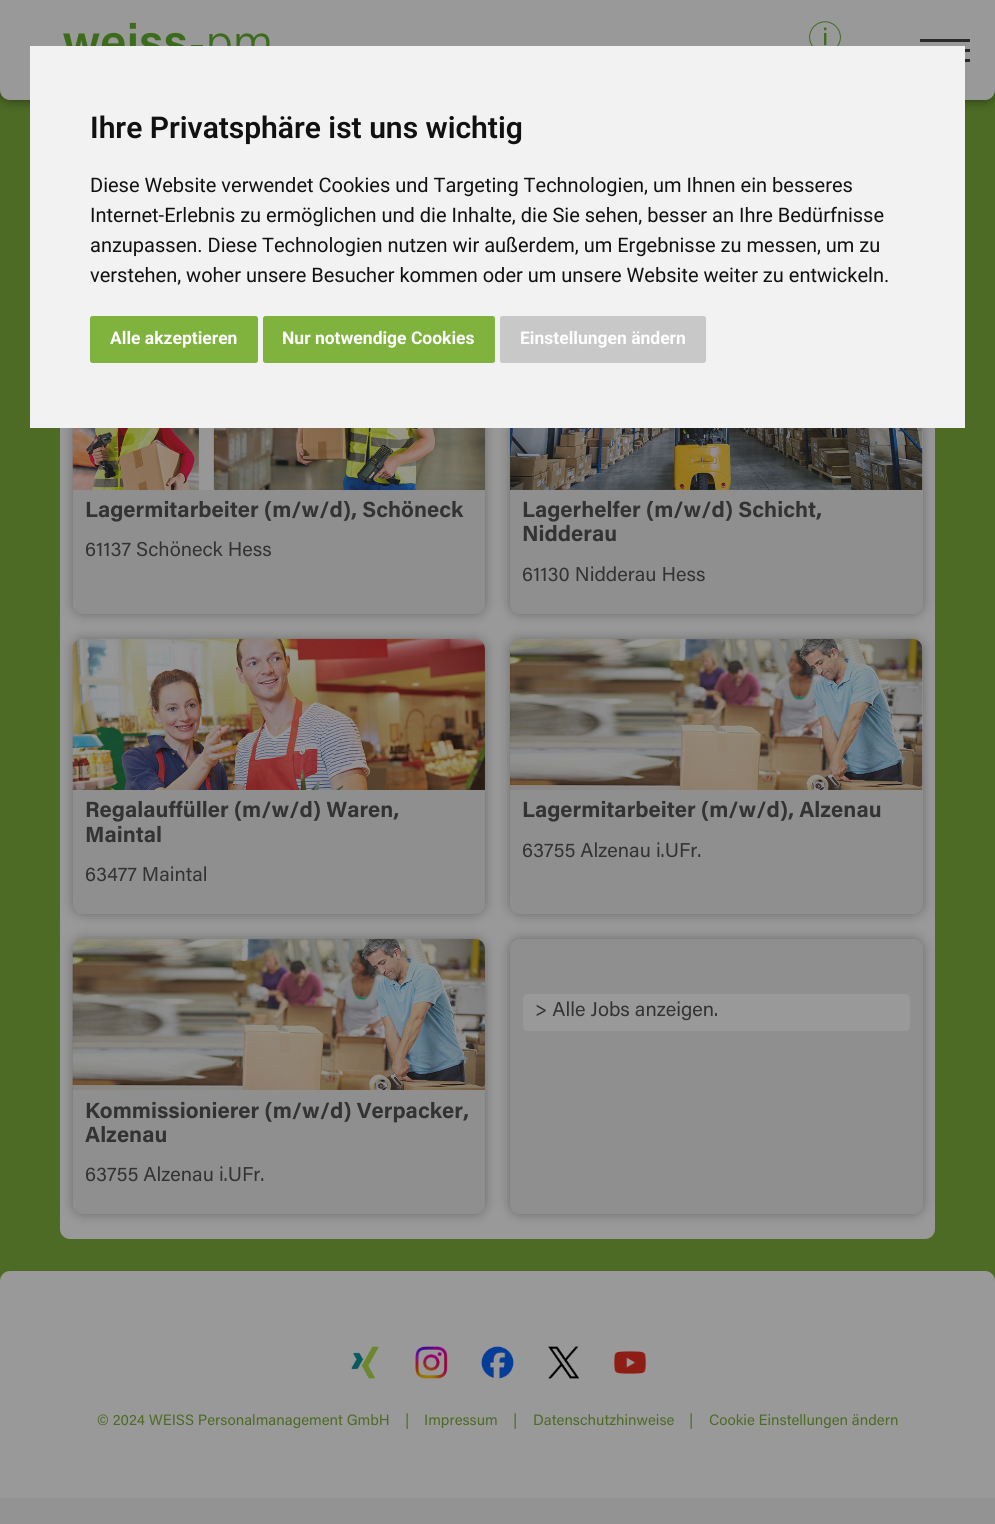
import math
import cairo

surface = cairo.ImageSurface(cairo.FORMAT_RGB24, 995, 1524)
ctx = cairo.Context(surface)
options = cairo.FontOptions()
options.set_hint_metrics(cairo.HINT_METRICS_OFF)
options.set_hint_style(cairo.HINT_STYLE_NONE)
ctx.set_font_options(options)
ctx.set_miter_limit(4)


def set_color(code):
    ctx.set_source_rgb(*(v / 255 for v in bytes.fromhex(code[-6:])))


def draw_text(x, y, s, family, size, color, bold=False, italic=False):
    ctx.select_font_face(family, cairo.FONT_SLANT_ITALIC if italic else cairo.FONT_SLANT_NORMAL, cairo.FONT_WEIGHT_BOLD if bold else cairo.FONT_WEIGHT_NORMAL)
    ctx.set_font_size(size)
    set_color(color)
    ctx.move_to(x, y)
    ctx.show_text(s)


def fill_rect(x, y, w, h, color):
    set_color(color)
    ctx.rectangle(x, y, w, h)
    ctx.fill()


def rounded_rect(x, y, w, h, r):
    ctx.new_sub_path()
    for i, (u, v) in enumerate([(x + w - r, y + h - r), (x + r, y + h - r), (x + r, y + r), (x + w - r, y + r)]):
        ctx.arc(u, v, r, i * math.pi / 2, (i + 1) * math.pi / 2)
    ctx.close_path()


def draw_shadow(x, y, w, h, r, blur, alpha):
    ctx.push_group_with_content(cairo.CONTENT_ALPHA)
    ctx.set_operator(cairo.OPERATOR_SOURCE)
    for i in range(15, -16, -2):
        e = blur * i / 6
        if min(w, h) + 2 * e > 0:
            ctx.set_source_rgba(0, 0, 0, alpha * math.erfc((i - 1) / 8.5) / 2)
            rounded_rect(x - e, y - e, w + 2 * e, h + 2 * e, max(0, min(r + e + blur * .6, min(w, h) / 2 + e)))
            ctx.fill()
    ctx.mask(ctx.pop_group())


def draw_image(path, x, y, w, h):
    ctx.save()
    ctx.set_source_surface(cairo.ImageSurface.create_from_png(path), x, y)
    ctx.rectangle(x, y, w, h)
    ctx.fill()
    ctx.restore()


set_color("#939393")
ctx.paint()
fill_rect(0, 90, 995, 1191, "#4d6b25")
set_color("#000000")
draw_shadow(0, 0, 995, 100, 10, 6, 0.5)
set_color("#999999")
ctx.new_path()
ctx.move_to(0, 0)
ctx.line_to(995, 0)
ctx.line_to(995, 90)
ctx.curve_to(995, 95.5, 990.5, 100, 985, 100)
ctx.line_to(10, 100)
ctx.curve_to(4.5, 100, 0, 95.5, 0, 90)
ctx.close_path()
ctx.fill()
rounded_rect(60, 160, 875, 1079, 10)
ctx.fill()
set_color("#000000")
draw_shadow(73, 338, 412, 276, 10, 6, 0.3)
set_color("#8f8f8f")
rounded_rect(73, 338, 412, 276, 10)
ctx.fill()
set_color("#000000")
draw_shadow(510, 338, 413, 276, 10, 6, 0.3)
set_color("#8f8f8f")
rounded_rect(510, 338, 413, 276, 10)
ctx.fill()
fill_rect(30, 46, 935, 382, "#f2f2f2")
draw_text(90, 138, "Ihre Privatsphäre ist uns wichtig", "Roboto SemiBold", 30, "#111111")
draw_text(90, 192, "Diese Website verwendet Cookies und Targeting Technologien, um Ihnen ein besseres", "Roboto", 20, "#111111")
draw_text(90, 222, "Internet-Erlebnis zu ermöglichen und die Inhalte, die Sie sehen, besser an Ihre Bedürfnisse", "Roboto", 20, "#111111")
draw_text(90, 252, "anzupassen. Diese Technologien nutzen wir außerdem, um Ergebnisse zu messen, um zu", "Roboto", 20, "#111111")
draw_text(90, 282, "verstehen, woher unsere Besucher kommen oder um unsere Website weiter zu entwickeln.", "Roboto", 20, "#111111")
set_color("#80b33d")
rounded_rect(90, 316, 168, 47, 2.5)
ctx.fill()
draw_text(110, 344, "Alle akzeptieren", "Roboto", 17.5, "#ffffff", bold=True)
set_color("#80b33d")
rounded_rect(263, 316, 232, 47, 2.5)
ctx.fill()
draw_text(282, 344, "Nur notwendige Cookies", "Roboto", 17.5, "#ffffff", bold=True)
set_color("#c8c8c8")
rounded_rect(500, 316, 206, 47, 2.5)
ctx.fill()
draw_text(520, 344, "Einstellungen ändern", "Roboto", 17.5, "#ffffff", bold=True)
draw_image("assets/img1.png", 63, 22, 207, 24)
draw_image("assets/img2.png", 809, 21, 32, 25)
fill_rect(920, 39, 50, 3, "#292929")
fill_rect(965, 49, 5, 3, "#292929")
fill_rect(965, 59, 5, 3, "#292929")
draw_image("assets/img3.png", 72, 428, 413, 62)
draw_text(85, 517, "Lagermitarbeiter (m/w/d), Schöneck", "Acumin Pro", 22, "#333333", bold=True)
draw_text(85, 556, "61137 Schöneck Hess", "Acumin Pro", 20, "#333333")
draw_image("assets/img4.png", 510, 428, 413, 62)
draw_text(522, 517, "Lagerhelfer (m/w/d) Schicht,", "Acumin Pro", 22, "#333333", bold=True)
draw_text(522, 541, "Nidderau", "Acumin Pro", 22, "#333333", bold=True)
draw_text(522, 581, "61130 Nidderau Hess", "Acumin Pro", 20, "#333333")
set_color("#000000")
draw_shadow(73, 639, 412, 275, 10, 6, 0.3)
set_color("#8f8f8f")
rounded_rect(73, 639, 412, 275, 10)
ctx.fill()
draw_image("assets/img5.png", 72, 638, 413, 152)
draw_text(85, 817, "Regalauffüller (m/w/d) Waren,", "Acumin Pro", 22, "#333333", bold=True)
draw_text(85, 842, "Maintal", "Acumin Pro", 22, "#333333", bold=True)
draw_text(85, 881, "63477 Maintal", "Acumin Pro", 20, "#333333")
set_color("#000000")
draw_shadow(510, 639, 413, 275, 10, 6, 0.3)
set_color("#8f8f8f")
rounded_rect(510, 639, 413, 275, 10)
ctx.fill()
draw_image("assets/img6.png", 510, 638, 413, 152)
draw_text(522, 817, "Lagermitarbeiter (m/w/d), Alzenau", "Acumin Pro", 22, "#333333", bold=True)
draw_text(522, 857, "63755 Alzenau i.UFr.", "Acumin Pro", 20, "#333333")
set_color("#000000")
draw_shadow(510, 939, 413, 275, 10, 6, 0.3)
set_color("#8f8f8f")
rounded_rect(510, 939, 413, 275, 10)
ctx.fill()
set_color("#999999")
rounded_rect(523, 994, 387, 37, 5)
ctx.fill()
draw_text(535, 1016, "> Alle Jobs anzeigen.", "Acumin Pro", 20, "#333333")
set_color("#000000")
draw_shadow(73, 939, 412, 275, 10, 6, 0.3)
set_color("#8f8f8f")
rounded_rect(73, 939, 412, 275, 10)
ctx.fill()
draw_image("assets/img7.png", 72, 938, 413, 152)
draw_text(85, 1118, "Kommissionierer (m/w/d) Verpacker,", "Acumin Pro", 22, "#333333", bold=True)
draw_text(85, 1142, "Alzenau", "Acumin Pro", 22, "#333333", bold=True)
draw_text(85, 1181, "63755 Alzenau i.UFr.", "Acumin Pro", 20, "#333333")
set_color("#999999")
ctx.new_path()
ctx.move_to(10, 1271)
ctx.line_to(985, 1271)
ctx.curve_to(990.5, 1271, 995, 1275.5, 995, 1281)
ctx.line_to(995, 1498)
ctx.line_to(0, 1498)
ctx.line_to(0, 1281)
ctx.curve_to(0, 1275.5, 4.5, 1271, 10, 1271)
ctx.close_path()
ctx.fill()
draw_image("assets/img8.png", 351, 1346, 28, 33)
draw_image("assets/img9.png", 415, 1346, 33, 33)
draw_image("assets/img10.png", 481, 1346, 33, 33)
draw_image("assets/img11.png", 548, 1346, 31, 33)
draw_image("assets/img12.png", 614, 1351, 32, 23)
draw_text(97, 1425, "© 2024 WEISS Personalmanagement GmbH    |", "Acumin Pro", 15, "#4d6b25")
draw_text(424, 1425, "Impressum", "Acumin Pro", 15, "#4d6b25")
draw_text(513, 1425, "|", "Acumin Pro", 15, "#4d6b25")
draw_text(533, 1425, "Datenschutzhinweise", "Acumin Pro", 15, "#4d6b25")
draw_text(689, 1425, "|", "Acumin Pro", 15, "#4d6b25")
draw_text(709, 1425, "Cookie Einstellungen ändern", "Acumin Pro", 15, "#4d6b25")
surface.write_to_png("output.png")
